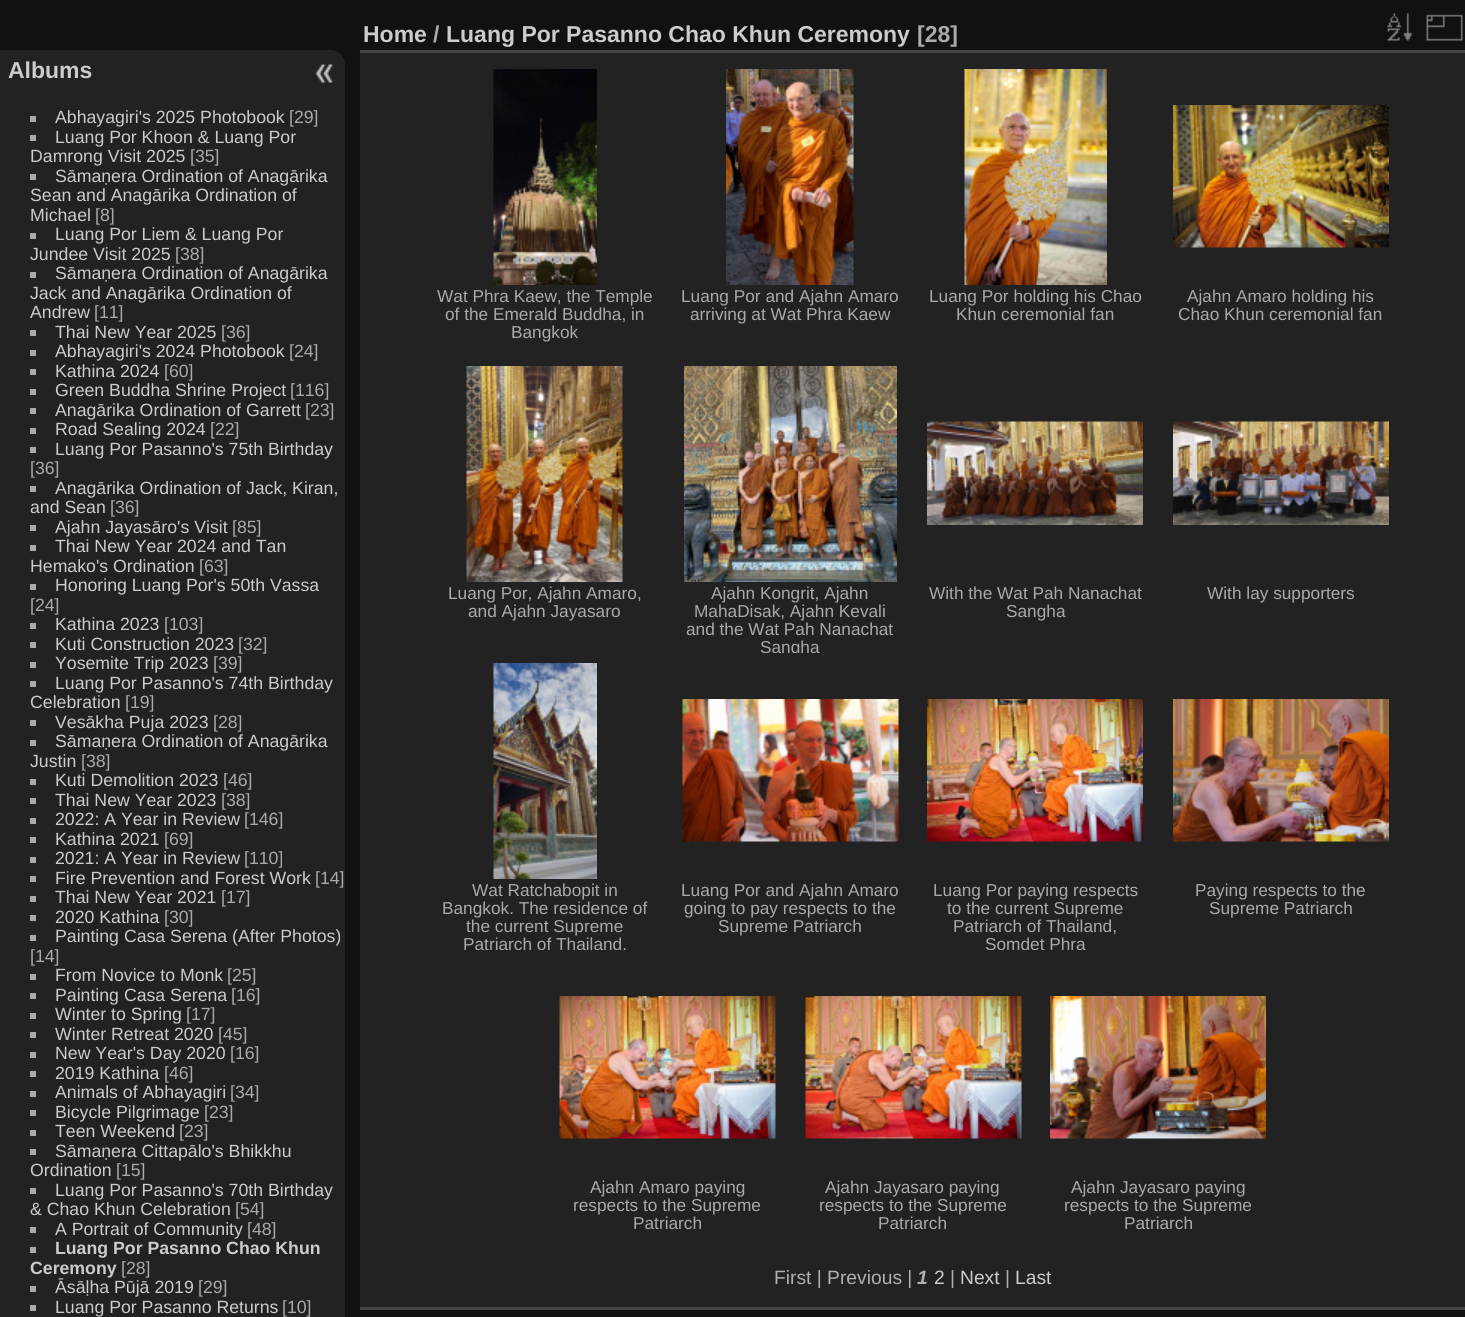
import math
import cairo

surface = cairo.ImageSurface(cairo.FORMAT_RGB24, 1465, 1317)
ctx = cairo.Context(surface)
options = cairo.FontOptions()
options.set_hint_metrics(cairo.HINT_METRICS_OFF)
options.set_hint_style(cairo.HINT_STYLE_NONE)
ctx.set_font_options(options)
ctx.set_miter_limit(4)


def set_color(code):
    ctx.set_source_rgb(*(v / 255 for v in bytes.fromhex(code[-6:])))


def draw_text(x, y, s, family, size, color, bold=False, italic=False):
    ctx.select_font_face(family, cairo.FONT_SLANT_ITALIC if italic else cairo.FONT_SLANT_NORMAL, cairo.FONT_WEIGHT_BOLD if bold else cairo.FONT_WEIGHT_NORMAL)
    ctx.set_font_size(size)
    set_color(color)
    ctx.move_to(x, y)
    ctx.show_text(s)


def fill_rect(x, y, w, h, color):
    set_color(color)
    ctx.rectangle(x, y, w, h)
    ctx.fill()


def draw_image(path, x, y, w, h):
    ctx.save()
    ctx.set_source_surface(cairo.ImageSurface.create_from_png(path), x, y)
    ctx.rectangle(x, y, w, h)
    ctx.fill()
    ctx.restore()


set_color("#111111")
ctx.paint()
set_color("#222222")
ctx.new_path()
ctx.move_to(0, 50)
ctx.line_to(330, 50)
ctx.curve_to(338.5, 50, 345, 56.5, 345, 65)
ctx.line_to(345, 1317)
ctx.curve_to(345, 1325.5, 338.5, 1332, 330, 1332)
ctx.line_to(0, 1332)
ctx.close_path()
ctx.fill()
draw_text(8, 78, "Albums", "Liberation Sans", 23, "#cccccc", bold=True)
fill_rect(30, 116, 6, 6, "#aaaaaa")
draw_text(55, 123, "Abhayagiri's 2025 Photobook", "Liberation Sans", 17.7, "#cccccc")
draw_text(289, 123, "[29]", "Liberation Sans", 17.7, "#aaaaaa")
fill_rect(30, 135, 6, 6, "#aaaaaa")
draw_text(55, 143, "Luang Por Khoon & Luang Por", "Liberation Sans", 17.7, "#cccccc")
draw_text(30, 162, "Damrong Visit 2025", "Liberation Sans", 17.7, "#cccccc")
draw_text(190, 162, "[35]", "Liberation Sans", 17.7, "#aaaaaa")
fill_rect(30, 174, 6, 6, "#aaaaaa")
draw_text(55, 182, "Sāmaṇera Ordination of Anagārika", "Liberation Sans", 17.7, "#cccccc")
draw_text(30, 201, "Sean and Anagārika Ordination of", "Liberation Sans", 17.7, "#cccccc")
draw_text(30, 221, "Michael", "Liberation Sans", 17.7, "#cccccc")
draw_text(95, 221, "[8]", "Liberation Sans", 17.7, "#aaaaaa")
fill_rect(30, 233, 6, 6, "#aaaaaa")
draw_text(55, 240, "Luang Por Liem & Luang Por", "Liberation Sans", 17.7, "#cccccc")
draw_text(30, 260, "Jundee Visit 2025", "Liberation Sans", 17.7, "#cccccc")
draw_text(175, 260, "[38]", "Liberation Sans", 17.7, "#aaaaaa")
fill_rect(30, 272, 6, 6, "#aaaaaa")
draw_text(55, 279, "Sāmaṇera Ordination of Anagārika", "Liberation Sans", 17.7, "#cccccc")
draw_text(30, 299, "Jack and Anagārika Ordination of", "Liberation Sans", 17.7, "#cccccc")
draw_text(30, 318, "Andrew", "Liberation Sans", 17.7, "#cccccc")
draw_text(94, 318, "[11]", "Liberation Sans", 17.7, "#aaaaaa")
fill_rect(30, 330, 6, 6, "#aaaaaa")
draw_text(55, 338, "Thai New Year 2025", "Liberation Sans", 17.7, "#cccccc")
draw_text(221, 338, "[36]", "Liberation Sans", 17.7, "#aaaaaa")
fill_rect(30, 350, 6, 6, "#aaaaaa")
draw_text(55, 357, "Abhayagiri's 2024 Photobook", "Liberation Sans", 17.7, "#cccccc")
draw_text(289, 357, "[24]", "Liberation Sans", 17.7, "#aaaaaa")
fill_rect(30, 369, 6, 6, "#aaaaaa")
draw_text(55, 377, "Kathina 2024", "Liberation Sans", 17.7, "#cccccc")
draw_text(164, 377, "[60]", "Liberation Sans", 17.7, "#aaaaaa")
fill_rect(30, 389, 6, 6, "#aaaaaa")
draw_text(55, 396, "Green Buddha Shrine Project", "Liberation Sans", 17.7, "#cccccc")
draw_text(290, 396, "[116]", "Liberation Sans", 17.7, "#aaaaaa")
fill_rect(30, 408, 6, 6, "#aaaaaa")
draw_text(55, 416, "Anagārika Ordination of Garrett", "Liberation Sans", 17.7, "#cccccc")
draw_text(305, 416, "[23]", "Liberation Sans", 17.7, "#aaaaaa")
fill_rect(30, 428, 6, 6, "#aaaaaa")
draw_text(55, 435, "Road Sealing 2024", "Liberation Sans", 17.7, "#cccccc")
draw_text(210, 435, "[22]", "Liberation Sans", 17.7, "#aaaaaa")
fill_rect(30, 447, 6, 6, "#aaaaaa")
draw_text(55, 455, "Luang Por Pasanno's 75th Birthday", "Liberation Sans", 17.7, "#cccccc")
draw_text(30, 474, "[36]", "Liberation Sans", 17.7, "#aaaaaa")
fill_rect(30, 486, 6, 6, "#aaaaaa")
draw_text(55, 494, "Anagārika Ordination of Jack, Kiran,", "Liberation Sans", 17.7, "#cccccc")
draw_text(30, 513, "and Sean", "Liberation Sans", 17.7, "#cccccc")
draw_text(110, 513, "[36]", "Liberation Sans", 17.7, "#aaaaaa")
fill_rect(30, 525, 6, 6, "#aaaaaa")
draw_text(55, 533, "Ajahn Jayasāro's Visit", "Liberation Sans", 17.7, "#cccccc")
draw_text(232, 533, "[85]", "Liberation Sans", 17.7, "#aaaaaa")
fill_rect(30, 545, 6, 6, "#aaaaaa")
draw_text(55, 552, "Thai New Year 2024 and Tan", "Liberation Sans", 17.7, "#cccccc")
draw_text(30, 572, "Hemako's Ordination", "Liberation Sans", 17.7, "#cccccc")
draw_text(199, 572, "[63]", "Liberation Sans", 17.7, "#aaaaaa")
fill_rect(30, 584, 6, 6, "#aaaaaa")
draw_text(55, 591, "Honoring Luang Por's 50th Vassa", "Liberation Sans", 17.7, "#cccccc")
draw_text(30, 611, "[24]", "Liberation Sans", 17.7, "#aaaaaa")
fill_rect(30, 623, 6, 6, "#aaaaaa")
draw_text(55, 630, "Kathina 2023", "Liberation Sans", 17.7, "#cccccc")
draw_text(164, 630, "[103]", "Liberation Sans", 17.7, "#aaaaaa")
fill_rect(30, 642, 6, 6, "#aaaaaa")
draw_text(55, 650, "Kuti Construction 2023", "Liberation Sans", 17.7, "#cccccc")
draw_text(238, 650, "[32]", "Liberation Sans", 17.7, "#aaaaaa")
fill_rect(30, 662, 6, 6, "#aaaaaa")
draw_text(55, 669, "Yosemite Trip 2023", "Liberation Sans", 17.7, "#cccccc")
draw_text(213, 669, "[39]", "Liberation Sans", 17.7, "#aaaaaa")
fill_rect(30, 681, 6, 6, "#aaaaaa")
draw_text(55, 689, "Luang Por Pasanno's 74th Birthday", "Liberation Sans", 17.7, "#cccccc")
draw_text(30, 708, "Celebration", "Liberation Sans", 17.7, "#cccccc")
draw_text(125, 708, "[19]", "Liberation Sans", 17.7, "#aaaaaa")
fill_rect(30, 720, 6, 6, "#aaaaaa")
draw_text(55, 728, "Vesākha Puja 2023", "Liberation Sans", 17.7, "#cccccc")
draw_text(213, 728, "[28]", "Liberation Sans", 17.7, "#aaaaaa")
fill_rect(30, 740, 6, 6, "#aaaaaa")
draw_text(55, 747, "Sāmaṇera Ordination of Anagārika", "Liberation Sans", 17.7, "#cccccc")
draw_text(30, 767, "Justin", "Liberation Sans", 17.7, "#cccccc")
draw_text(81, 767, "[38]", "Liberation Sans", 17.7, "#aaaaaa")
fill_rect(30, 779, 6, 6, "#aaaaaa")
draw_text(55, 786, "Kuti Demolition 2023", "Liberation Sans", 17.7, "#cccccc")
draw_text(223, 786, "[46]", "Liberation Sans", 17.7, "#aaaaaa")
fill_rect(30, 798, 6, 6, "#aaaaaa")
draw_text(55, 806, "Thai New Year 2023", "Liberation Sans", 17.7, "#cccccc")
draw_text(221, 806, "[38]", "Liberation Sans", 17.7, "#aaaaaa")
fill_rect(30, 818, 6, 6, "#aaaaaa")
draw_text(55, 825, "2022: A Year in Review", "Liberation Sans", 17.7, "#cccccc")
draw_text(244, 825, "[146]", "Liberation Sans", 17.7, "#aaaaaa")
fill_rect(30, 837, 6, 6, "#aaaaaa")
draw_text(55, 845, "Kathina 2021", "Liberation Sans", 17.7, "#cccccc")
draw_text(164, 845, "[69]", "Liberation Sans", 17.7, "#aaaaaa")
fill_rect(30, 857, 6, 6, "#aaaaaa")
draw_text(55, 864, "2021: A Year in Review", "Liberation Sans", 17.7, "#cccccc")
draw_text(244, 864, "[110]", "Liberation Sans", 17.7, "#aaaaaa")
fill_rect(30, 876, 6, 6, "#aaaaaa")
draw_text(55, 884, "Fire Prevention and Forest Work", "Liberation Sans", 17.7, "#cccccc")
draw_text(315, 884, "[14]", "Liberation Sans", 17.7, "#aaaaaa")
fill_rect(30, 896, 6, 6, "#aaaaaa")
draw_text(55, 903, "Thai New Year 2021", "Liberation Sans", 17.7, "#cccccc")
draw_text(221, 903, "[17]", "Liberation Sans", 17.7, "#aaaaaa")
fill_rect(30, 915, 6, 6, "#aaaaaa")
draw_text(55, 923, "2020 Kathina", "Liberation Sans", 17.7, "#cccccc")
draw_text(164, 923, "[30]", "Liberation Sans", 17.7, "#aaaaaa")
fill_rect(30, 935, 6, 6, "#aaaaaa")
draw_text(55, 942, "Painting Casa Serena (After Photos)", "Liberation Sans", 17.7, "#cccccc")
draw_text(30, 962, "[14]", "Liberation Sans", 17.7, "#aaaaaa")
fill_rect(30, 974, 6, 6, "#aaaaaa")
draw_text(55, 981, "From Novice to Monk", "Liberation Sans", 17.7, "#cccccc")
draw_text(227, 981, "[25]", "Liberation Sans", 17.7, "#aaaaaa")
fill_rect(30, 993, 6, 6, "#aaaaaa")
draw_text(55, 1001, "Painting Casa Serena", "Liberation Sans", 17.7, "#cccccc")
draw_text(231, 1001, "[16]", "Liberation Sans", 17.7, "#aaaaaa")
fill_rect(30, 1013, 6, 6, "#aaaaaa")
draw_text(55, 1020, "Winter to Spring", "Liberation Sans", 17.7, "#cccccc")
draw_text(186, 1020, "[17]", "Liberation Sans", 17.7, "#aaaaaa")
fill_rect(30, 1032, 6, 6, "#aaaaaa")
draw_text(55, 1040, "Winter Retreat 2020", "Liberation Sans", 17.7, "#cccccc")
draw_text(218, 1040, "[45]", "Liberation Sans", 17.7, "#aaaaaa")
fill_rect(30, 1052, 6, 6, "#aaaaaa")
draw_text(55, 1059, "New Year's Day 2020", "Liberation Sans", 17.7, "#cccccc")
draw_text(230, 1059, "[16]", "Liberation Sans", 17.7, "#aaaaaa")
fill_rect(30, 1071, 6, 6, "#aaaaaa")
draw_text(55, 1079, "2019 Kathina", "Liberation Sans", 17.7, "#cccccc")
draw_text(164, 1079, "[46]", "Liberation Sans", 17.7, "#aaaaaa")
fill_rect(30, 1091, 6, 6, "#aaaaaa")
draw_text(55, 1098, "Animals of Abhayagiri", "Liberation Sans", 17.7, "#cccccc")
draw_text(230, 1098, "[34]", "Liberation Sans", 17.7, "#aaaaaa")
fill_rect(30, 1110, 6, 6, "#aaaaaa")
draw_text(55, 1118, "Bicycle Pilgrimage", "Liberation Sans", 17.7, "#cccccc")
draw_text(204, 1118, "[23]", "Liberation Sans", 17.7, "#aaaaaa")
fill_rect(30, 1130, 6, 6, "#aaaaaa")
draw_text(55, 1137, "Teen Weekend", "Liberation Sans", 17.7, "#cccccc")
draw_text(179, 1137, "[23]", "Liberation Sans", 17.7, "#aaaaaa")
fill_rect(30, 1149, 6, 6, "#aaaaaa")
draw_text(55, 1157, "Sāmaṇera Cittapālo's Bhikkhu", "Liberation Sans", 17.7, "#cccccc")
draw_text(30, 1176, "Ordination", "Liberation Sans", 17.7, "#cccccc")
draw_text(116, 1176, "[15]", "Liberation Sans", 17.7, "#aaaaaa")
fill_rect(30, 1188, 6, 6, "#aaaaaa")
draw_text(55, 1196, "Luang Por Pasanno's 70th Birthday", "Liberation Sans", 17.7, "#cccccc")
draw_text(30, 1215, "& Chao Khun Celebration", "Liberation Sans", 17.7, "#cccccc")
draw_text(235, 1215, "[54]", "Liberation Sans", 17.7, "#aaaaaa")
fill_rect(30, 1227, 6, 6, "#aaaaaa")
draw_text(55, 1235, "A Portrait of Community", "Liberation Sans", 17.7, "#cccccc")
draw_text(247, 1235, "[48]", "Liberation Sans", 17.7, "#aaaaaa")
fill_rect(30, 1247, 6, 6, "#aaaaaa")
draw_text(55, 1254, "Luang Por Pasanno Chao Khun", "Liberation Sans", 17.7, "#cccccc", bold=True)
draw_text(30, 1274, "Ceremony", "Liberation Sans", 17.7, "#cccccc", bold=True)
draw_text(121, 1274, "[28]", "Liberation Sans", 17.7, "#aaaaaa")
fill_rect(30, 1286, 6, 6, "#aaaaaa")
draw_text(55, 1293, "Āsāḷha Pūjā 2019", "Liberation Sans", 17.7, "#cccccc")
draw_text(198, 1293, "[29]", "Liberation Sans", 17.7, "#aaaaaa")
fill_rect(30, 1305, 6, 6, "#aaaaaa")
draw_text(55, 1313, "Luang Por Pasanno Returns", "Liberation Sans", 17.7, "#cccccc")
draw_text(282, 1313, "[10]", "Liberation Sans", 17.7, "#aaaaaa")
fill_rect(360, 53, 1105, 1254, "#222222")
fill_rect(360, 1307, 1105, 3, "#444444")
fill_rect(360, 50, 1105, 3, "#444444")
draw_text(363, 42, "Home", "Liberation Sans", 23, "#cccccc", bold=True)
draw_text(433, 42, "/", "Liberation Sans", 23, "#aaaaaa", bold=True)
draw_text(446, 42, "Luang Por Pasanno Chao Khun Ceremony", "Liberation Sans", 23, "#cccccc", bold=True)
draw_text(917, 42, "[28]", "Liberation Sans", 23, "#aaaaaa", bold=True)
draw_image("assets/img1.png", 1387, 13, 25, 28)
draw_image("assets/img2.png", 1426, 14, 37, 27)
draw_image("assets/img3.png", 493, 69, 104, 216)
draw_text(437, 302, "Wat Phra Kaew, the Temple", "Liberation Sans", 17.25, "#aaaaaa")
draw_text(445, 320, "of the Emerald Buddha, in", "Liberation Sans", 17.25, "#aaaaaa")
draw_text(511, 338, "Bangkok", "Liberation Sans", 17.25, "#aaaaaa")
draw_image("assets/img4.png", 726, 69, 128, 216)
draw_text(681, 302, "Luang Por and Ajahn Amaro", "Liberation Sans", 17.25, "#aaaaaa")
draw_text(690, 320, "arriving at Wat Phra Kaew", "Liberation Sans", 17.25, "#aaaaaa")
draw_image("assets/img5.png", 964, 69, 143, 216)
draw_text(929, 302, "Luang Por holding his Chao", "Liberation Sans", 17.25, "#aaaaaa")
draw_text(956, 320, "Khun ceremonial fan", "Liberation Sans", 17.25, "#aaaaaa")
draw_image("assets/img6.png", 1173, 105, 216, 143)
draw_text(1187, 302, "Ajahn Amaro holding his", "Liberation Sans", 17.25, "#aaaaaa")
draw_text(1178, 320, "Chao Khun ceremonial fan", "Liberation Sans", 17.25, "#aaaaaa")
draw_image("assets/img7.png", 466, 366, 157, 216)
draw_text(448, 599, "Luang Por, Ajahn Amaro,", "Liberation Sans", 17.25, "#aaaaaa")
draw_text(468, 617, "and Ajahn Jayasaro", "Liberation Sans", 17.25, "#aaaaaa")
draw_image("assets/img8.png", 684, 366, 213, 216)
draw_text(711, 599, "Ajahn Kongrit, Ajahn", "Liberation Sans", 17.25, "#aaaaaa")
draw_text(694, 617, "MahaDisak, Ajahn Kevali", "Liberation Sans", 17.25, "#aaaaaa")
draw_text(686, 635, "and the Wat Pah Nanachat", "Liberation Sans", 17.25, "#aaaaaa")
ctx.save()
ctx.rectangle(681, 584, 219, 69)
ctx.clip()
draw_text(760, 653, "Sangha", "Liberation Sans", 17.25, "#aaaaaa")
ctx.restore()
draw_image("assets/img9.png", 927, 421, 216, 104)
draw_text(929, 599, "With the Wat Pah Nanachat", "Liberation Sans", 17.25, "#aaaaaa")
draw_text(1006, 617, "Sangha", "Liberation Sans", 17.25, "#aaaaaa")
draw_image("assets/img10.png", 1173, 421, 216, 104)
draw_text(1207, 599, "With lay supporters", "Liberation Sans", 17.25, "#aaaaaa")
draw_image("assets/img11.png", 493, 663, 104, 216)
draw_text(472, 896, "Wat Ratchabopit in", "Liberation Sans", 17.25, "#aaaaaa")
draw_text(442, 914, "Bangkok. The residence of", "Liberation Sans", 17.25, "#aaaaaa")
draw_text(466, 932, "the current Supreme", "Liberation Sans", 17.25, "#aaaaaa")
ctx.save()
ctx.rectangle(435, 881, 219, 69)
ctx.clip()
draw_text(463, 950, "Patriarch of Thailand,", "Liberation Sans", 17.25, "#aaaaaa")
ctx.restore()
draw_image("assets/img12.png", 682, 699, 217, 143)
draw_text(681, 896, "Luang Por and Ajahn Amaro", "Liberation Sans", 17.25, "#aaaaaa")
draw_text(684, 914, "going to pay respects to the", "Liberation Sans", 17.25, "#aaaaaa")
draw_text(718, 932, "Supreme Patriarch", "Liberation Sans", 17.25, "#aaaaaa")
draw_image("assets/img13.png", 927, 699, 216, 143)
draw_text(933, 896, "Luang Por paying respects", "Liberation Sans", 17.25, "#aaaaaa")
draw_text(947, 914, "to the current Supreme", "Liberation Sans", 17.25, "#aaaaaa")
draw_text(953, 932, "Patriarch of Thailand,", "Liberation Sans", 17.25, "#aaaaaa")
ctx.save()
ctx.rectangle(926, 881, 219, 69)
ctx.clip()
draw_text(985, 950, "Somdet Phra", "Liberation Sans", 17.25, "#aaaaaa")
ctx.restore()
draw_image("assets/img14.png", 1173, 699, 216, 143)
draw_text(1195, 896, "Paying respects to the", "Liberation Sans", 17.25, "#aaaaaa")
draw_text(1209, 914, "Supreme Patriarch", "Liberation Sans", 17.25, "#aaaaaa")
draw_image("assets/img15.png", 559, 996, 217, 143)
draw_text(590, 1193, "Ajahn Amaro paying", "Liberation Sans", 17.25, "#aaaaaa")
draw_text(573, 1211, "respects to the Supreme", "Liberation Sans", 17.25, "#aaaaaa")
draw_text(633, 1229, "Patriarch", "Liberation Sans", 17.25, "#aaaaaa")
draw_image("assets/img16.png", 805, 996, 217, 143)
draw_text(825, 1193, "Ajahn Jayasaro paying", "Liberation Sans", 17.25, "#aaaaaa")
draw_text(819, 1211, "respects to the Supreme", "Liberation Sans", 17.25, "#aaaaaa")
draw_text(878, 1229, "Patriarch", "Liberation Sans", 17.25, "#aaaaaa")
draw_image("assets/img17.png", 1050, 996, 216, 143)
draw_text(1071, 1193, "Ajahn Jayasaro paying", "Liberation Sans", 17.25, "#aaaaaa")
draw_text(1064, 1211, "respects to the Supreme", "Liberation Sans", 17.25, "#aaaaaa")
draw_text(1124, 1229, "Patriarch", "Liberation Sans", 17.25, "#aaaaaa")
draw_text(774, 1284, "First | Previous |", "Liberation Sans", 19.25, "#b0b0b0")
draw_text(917, 1284, "1", "Liberation Sans", 19.25, "#b0b0b0", bold=True, italic=True)
draw_text(934, 1284, "2", "Liberation Sans", 19.25, "#cccccc")
draw_text(950, 1284, "|", "Liberation Sans", 19.25, "#b0b0b0")
draw_text(960, 1284, "Next", "Liberation Sans", 19.25, "#cccccc")
draw_text(1005, 1284, "|", "Liberation Sans", 19.25, "#b0b0b0")
draw_text(1015, 1284, "Last", "Liberation Sans", 19.25, "#cccccc")
draw_image("assets/img18.png", 315, 64, 19, 19)
surface.write_to_png("output.png")
